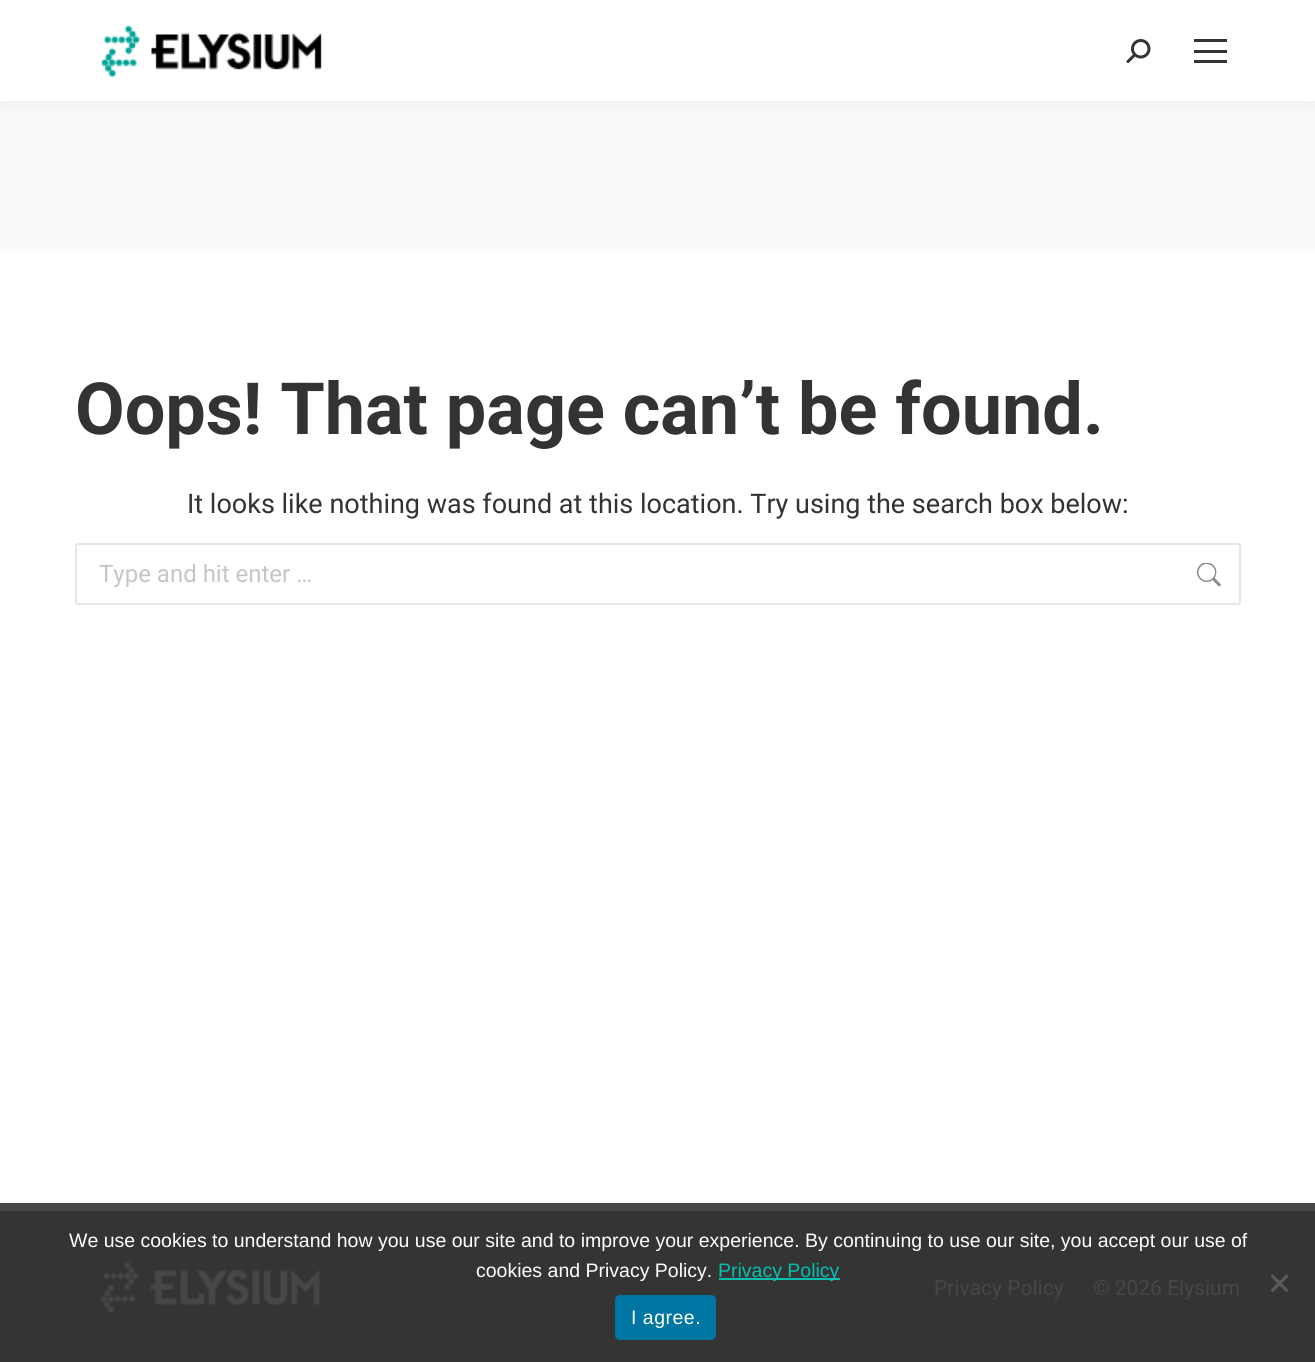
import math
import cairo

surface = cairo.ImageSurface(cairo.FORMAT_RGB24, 1315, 1362)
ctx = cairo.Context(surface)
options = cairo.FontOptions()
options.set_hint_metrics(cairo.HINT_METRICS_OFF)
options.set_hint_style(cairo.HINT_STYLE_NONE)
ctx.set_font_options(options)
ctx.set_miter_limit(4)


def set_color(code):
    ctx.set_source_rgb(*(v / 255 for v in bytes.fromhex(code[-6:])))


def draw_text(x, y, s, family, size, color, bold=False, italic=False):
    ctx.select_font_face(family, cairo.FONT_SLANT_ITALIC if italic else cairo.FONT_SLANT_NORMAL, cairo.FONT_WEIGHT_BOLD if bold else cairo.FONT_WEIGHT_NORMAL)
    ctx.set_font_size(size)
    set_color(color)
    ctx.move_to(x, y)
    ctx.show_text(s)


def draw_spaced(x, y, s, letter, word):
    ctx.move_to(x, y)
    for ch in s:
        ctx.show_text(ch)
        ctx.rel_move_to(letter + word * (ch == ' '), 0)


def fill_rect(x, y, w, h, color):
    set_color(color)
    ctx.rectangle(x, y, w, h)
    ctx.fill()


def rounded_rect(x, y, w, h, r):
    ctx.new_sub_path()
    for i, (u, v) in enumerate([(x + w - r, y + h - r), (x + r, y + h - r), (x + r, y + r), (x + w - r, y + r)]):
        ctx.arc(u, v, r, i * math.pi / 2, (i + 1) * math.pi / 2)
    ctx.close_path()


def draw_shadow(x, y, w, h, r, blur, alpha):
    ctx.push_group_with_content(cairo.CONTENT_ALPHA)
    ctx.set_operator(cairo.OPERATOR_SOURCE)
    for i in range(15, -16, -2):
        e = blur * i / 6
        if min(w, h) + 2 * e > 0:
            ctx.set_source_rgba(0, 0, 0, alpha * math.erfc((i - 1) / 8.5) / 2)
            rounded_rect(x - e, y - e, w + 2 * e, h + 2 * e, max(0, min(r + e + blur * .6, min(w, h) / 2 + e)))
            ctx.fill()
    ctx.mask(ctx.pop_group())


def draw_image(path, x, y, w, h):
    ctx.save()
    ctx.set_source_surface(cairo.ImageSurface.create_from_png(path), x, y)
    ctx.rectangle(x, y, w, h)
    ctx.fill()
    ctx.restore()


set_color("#ffffff")
ctx.paint()
fill_rect(0, 1203, 1315, 8, "#474747")
fill_rect(0, 101, 1315, 150, "#fafafa")
set_color("#000000")
draw_shadow(-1, -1, 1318, 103, 0, 11, 0.07)
fill_rect(0, 0, 1315, 101, "#ffffff")
draw_image("assets/img1.png", 100, 25, 222, 52)
draw_image("assets/img2.png", 1126, 39, 25, 24)
fill_rect(1194, 39, 33, 3, "#333333")
fill_rect(1194, 50, 33, 3, "#333333")
fill_rect(1194, 60, 33, 3, "#333333")
draw_text(75, 434, "Oops! That page can’t be found.", "Roboto", 72, "#333333", bold=True)
draw_text(187, 513, "It looks like nothing was found at this location. Try using the search box below:", "Roboto", 27, "#333333")
rounded_rect(76, 544, 1164, 60, 2)
set_color("#e7e7e7")
ctx.stroke()
draw_text(99, 582, "Type and hit enter …", "Roboto", 24, "#c4c5c9")
draw_image("assets/img3.png", 1197, 563, 24, 24)
fill_rect(0, 1211, 1315, 151, "#343435")
draw_image("assets/img4.png", 100, 1261, 221, 53)
draw_text(934, 1295, "Privacy Policy", "Roboto", 21, "#474747")
draw_text(1093, 1295, "© 2026 Elysium", "Roboto", 21, "#474747")
draw_text(69, 1247, "We use cookies to understand how you use our site and to improve your experience. By continuing to use our site, you accept our use of", "Liberation Sans", 19.5, "#ffffff")
draw_text(476, 1277, "cookies and Privacy Policy.", "Liberation Sans", 19.5, "#ffffff")
fill_rect(719, 1278, 121, 2, "#07bfaf")
draw_text(718, 1277, "Privacy Policy", "Liberation Sans", 19.5, "#07bfaf")
set_color("#5a5a5b")
ctx.new_path()
ctx.move_to(1286.5, 1274)
ctx.line_to(1288.5, 1276.5)
ctx.line_to(1272.5, 1292.5)
ctx.line_to(1270.5, 1290)
ctx.close_path()
ctx.fill()
ctx.new_path()
ctx.move_to(1270.5, 1276.5)
ctx.line_to(1272.5, 1274)
ctx.line_to(1288.5, 1290)
ctx.line_to(1286.5, 1292.5)
ctx.close_path()
ctx.fill()
set_color("#0076a3")
rounded_rect(615, 1295, 101, 45, 5)
ctx.fill()
set_color("#ffffff")
draw_spaced(631, 1324, "I agree.", 0.5, 0)
surface.write_to_png("output.png")
